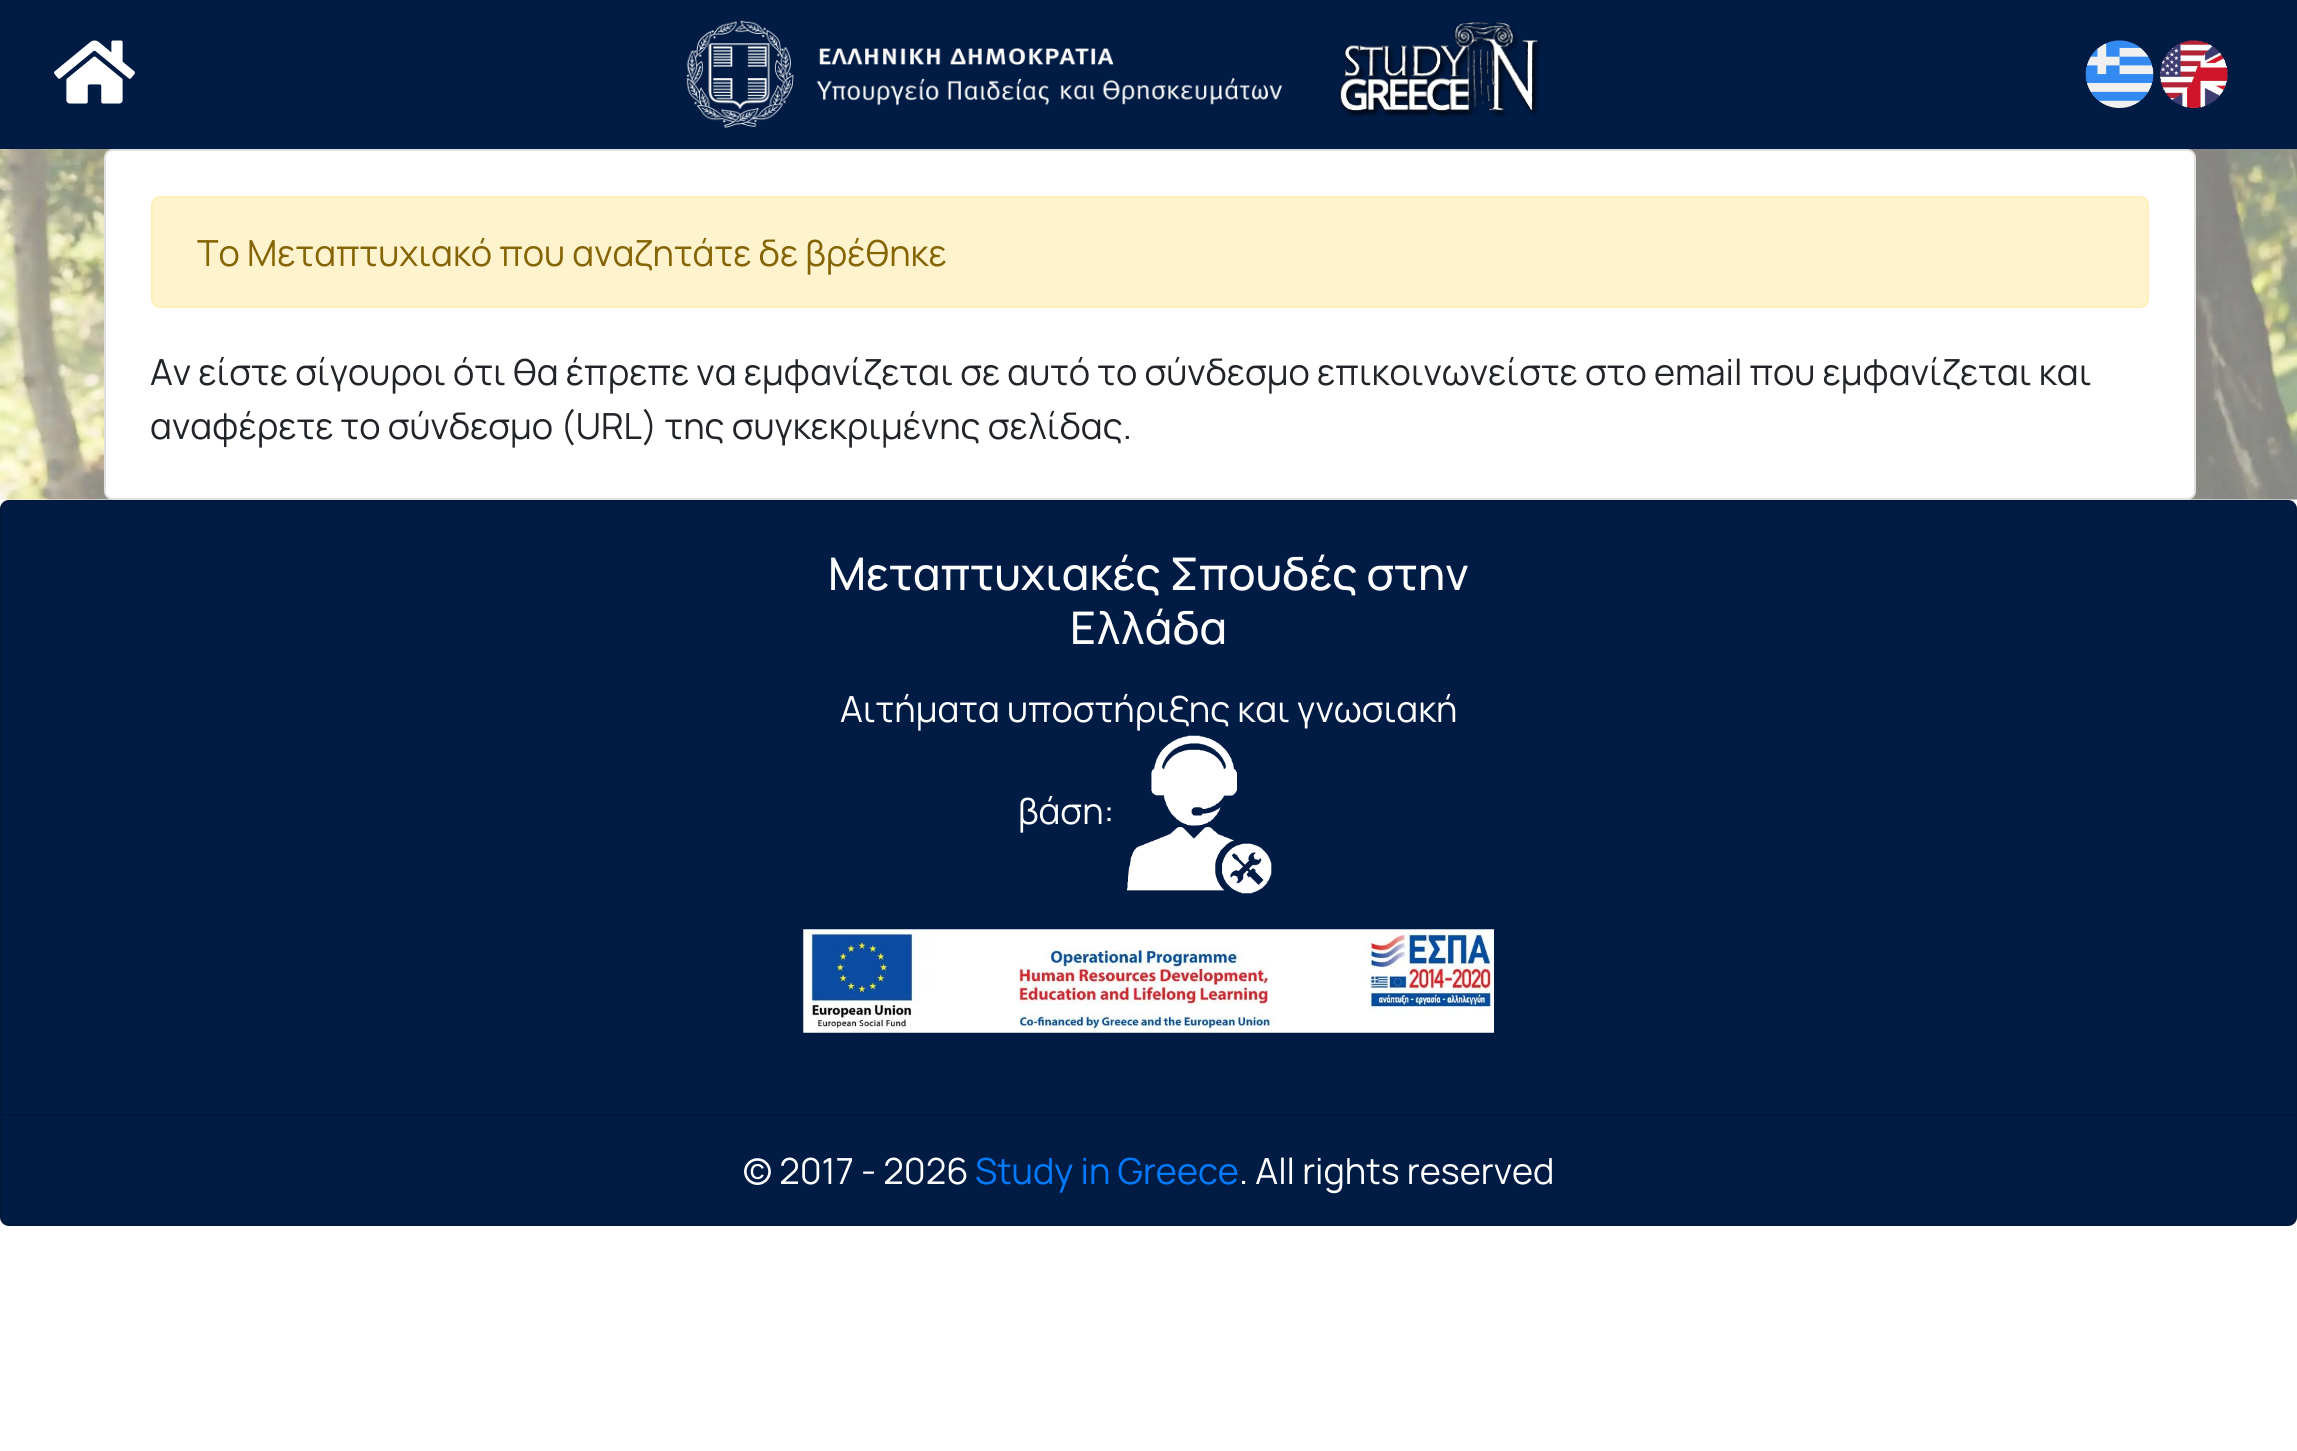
import math
import cairo

surface = cairo.ImageSurface(cairo.FORMAT_RGB24, 2297, 1451)
ctx = cairo.Context(surface)
options = cairo.FontOptions()
options.set_hint_metrics(cairo.HINT_METRICS_OFF)
options.set_hint_style(cairo.HINT_STYLE_NONE)
ctx.set_font_options(options)
ctx.set_miter_limit(4)


def set_color(code):
    ctx.set_source_rgb(*(v / 255 for v in bytes.fromhex(code[-6:])))


def draw_text(x, y, s, family, size, color, bold=False, italic=False):
    ctx.select_font_face(family, cairo.FONT_SLANT_ITALIC if italic else cairo.FONT_SLANT_NORMAL, cairo.FONT_WEIGHT_BOLD if bold else cairo.FONT_WEIGHT_NORMAL)
    ctx.set_font_size(size)
    set_color(color)
    ctx.move_to(x, y)
    ctx.show_text(s)


def fill_rect(x, y, w, h, color):
    set_color(color)
    ctx.rectangle(x, y, w, h)
    ctx.fill()


def rounded_rect(x, y, w, h, r):
    ctx.new_sub_path()
    for i, (u, v) in enumerate([(x + w - r, y + h - r), (x + r, y + h - r), (x + r, y + r), (x + w - r, y + r)]):
        ctx.arc(u, v, r, i * math.pi / 2, (i + 1) * math.pi / 2)
    ctx.close_path()


def draw_image(path, x, y, w, h):
    ctx.save()
    ctx.set_source_surface(cairo.ImageSurface.create_from_png(path), x, y)
    ctx.rectangle(x, y, w, h)
    ctx.fill()
    ctx.restore()


set_color("#ffffff")
ctx.paint()
fill_rect(0, 0, 2297, 149, "#001b44")
draw_image("assets/img1.png", 54, 40, 81, 64)
draw_image("assets/img2.png", 686, 20, 596, 108)
draw_image("assets/img3.png", 1339, 22, 202, 96)
draw_image("assets/img4.png", 2085, 40, 69, 68)
draw_image("assets/img5.png", 2160, 40, 68, 68)
draw_image("assets/img6.png", 0, 149, 2297, 351)
set_color("#ffffff")
rounded_rect(104, 149, 2092, 351, 9)
ctx.fill()
rounded_rect(105, 150, 2090, 349, 8)
ctx.set_source_rgba(0, 0, 0, 0.12)
ctx.stroke()
set_color("#fff3cd")
rounded_rect(152, 197, 1996, 110, 8)
ctx.fill_preserve()
set_color("#ffeeba")
ctx.stroke()
draw_text(197, 266, "Το Μεταπτυχιακό που αναζητάτε δε βρέθηκε", "Manrope", 36, "#856404")
draw_text(150, 385, "Αν είστε σίγουροι ότι θα έπρεπε να εμφανίζεται σε αυτό το σύνδεσμο επικοινωνείστε στο email που εμφανίζεται και", "Manrope", 36, "#212529")
draw_text(150, 439, "αναφέρετε το σύνδεσμο (URL) της συγκεκριμένης σελίδας.", "Manrope", 36, "#212529")
set_color("#001b44")
rounded_rect(0, 500, 2297, 726, 9)
ctx.fill()
rounded_rect(1, 501, 2295, 724, 8)
ctx.set_source_rgba(0, 0, 0, 0.12)
ctx.stroke()
draw_text(828, 590, "Μεταπτυχιακές Σπουδές στην", "Manrope Medium", 45, "#ffffff")
draw_text(1070, 644, "Ελλάδα", "Manrope Medium", 45, "#ffffff")
draw_text(840, 722, "Αιτήματα υποστήριξης και γνωσιακή", "Manrope", 36, "#ffffff")
draw_text(1018, 824, "βάση:", "Manrope", 36, "#ffffff")
draw_image("assets/img7.png", 1127, 735, 145, 159)
draw_image("assets/img8.png", 803, 929, 691, 104)
ctx.set_source_rgba(0, 0, 0, 0.03)
ctx.rectangle(2, 1223, 2293, 1)
ctx.fill()
fill_rect(2, 1114, 2293, 2, "#00173a")
draw_text(743, 1184, "© 2017 - 2026", "Manrope", 36, "#ffffff")
draw_text(975, 1184, "Study in Greece", "Manrope", 36, "#007bff")
draw_text(1239, 1184, ". All rights reserved", "Manrope", 36, "#ffffff")
surface.write_to_png("output.png")
